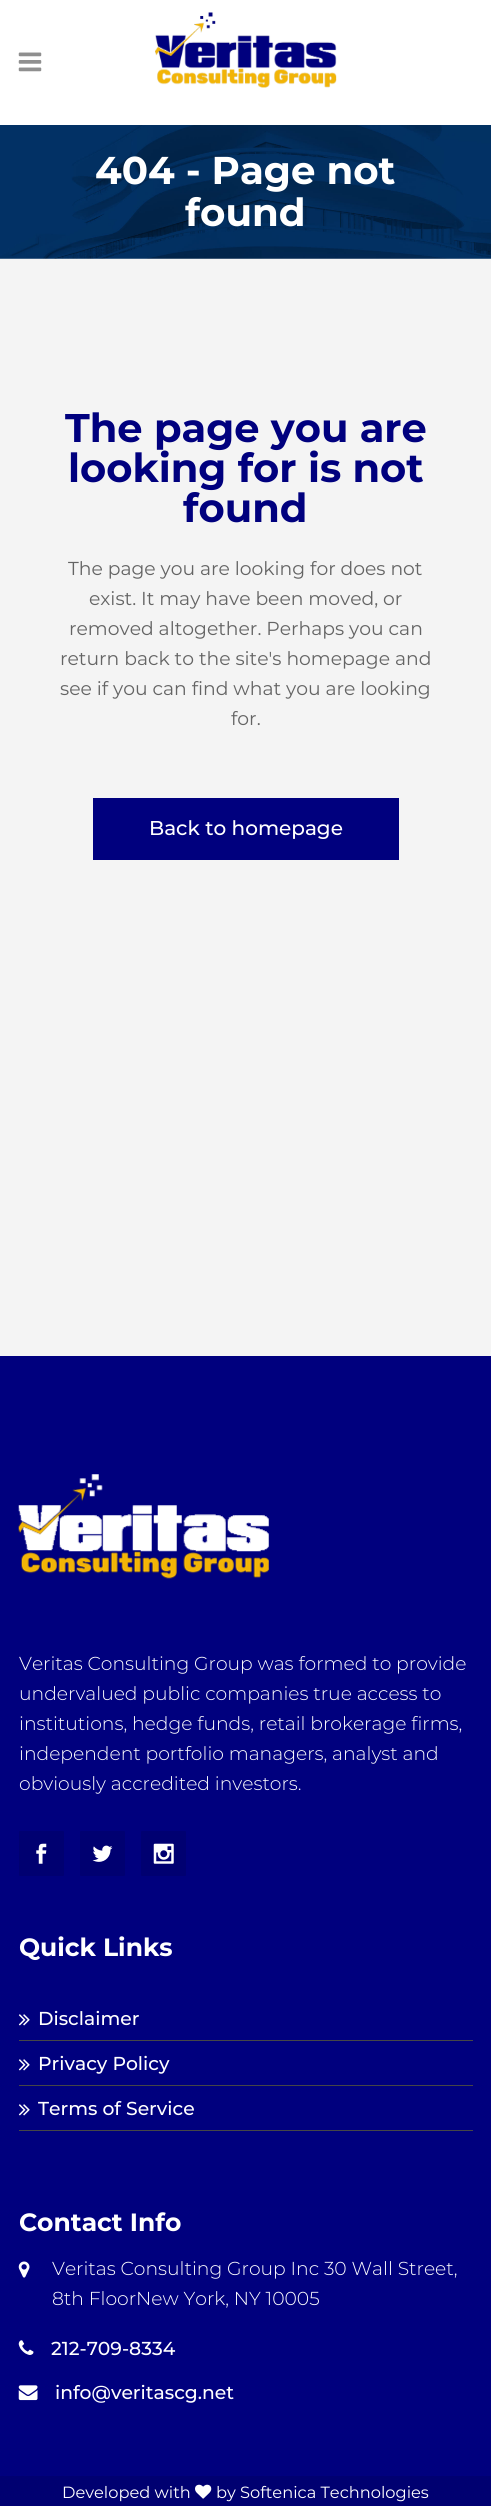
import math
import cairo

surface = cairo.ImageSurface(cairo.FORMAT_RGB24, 491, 2506)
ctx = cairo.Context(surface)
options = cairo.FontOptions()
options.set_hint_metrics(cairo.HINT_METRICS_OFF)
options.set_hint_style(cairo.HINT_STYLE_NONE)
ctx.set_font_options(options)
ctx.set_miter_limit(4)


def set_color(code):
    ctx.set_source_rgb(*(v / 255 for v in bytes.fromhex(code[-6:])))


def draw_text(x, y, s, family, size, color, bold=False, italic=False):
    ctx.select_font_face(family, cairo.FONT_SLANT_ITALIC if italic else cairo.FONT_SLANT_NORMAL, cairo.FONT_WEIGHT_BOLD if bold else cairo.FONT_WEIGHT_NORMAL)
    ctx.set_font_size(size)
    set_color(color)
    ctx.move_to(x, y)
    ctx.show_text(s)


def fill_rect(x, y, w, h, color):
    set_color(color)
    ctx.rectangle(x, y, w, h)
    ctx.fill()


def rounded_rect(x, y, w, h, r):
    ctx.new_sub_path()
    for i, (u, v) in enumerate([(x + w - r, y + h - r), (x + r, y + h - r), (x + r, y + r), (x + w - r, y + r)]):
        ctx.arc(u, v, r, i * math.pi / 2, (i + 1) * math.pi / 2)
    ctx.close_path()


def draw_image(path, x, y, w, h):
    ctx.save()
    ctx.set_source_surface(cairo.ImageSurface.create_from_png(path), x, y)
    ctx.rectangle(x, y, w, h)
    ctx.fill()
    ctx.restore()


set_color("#f4f4f4")
ctx.paint()
fill_rect(0, 0, 491, 125, "#ffffff")
draw_image("assets/img1.png", 18, 52, 24, 20)
draw_image("assets/img2.png", 155, 12, 182, 76)
draw_image("assets/img3.png", 0, 125, 491, 134)
draw_text(95, 184, "404 - Page not", "Montserrat", 38.75, "#ffffff", bold=True)
draw_text(185, 226, "found", "Montserrat", 38.75, "#ffffff", bold=True)
draw_text(65, 442, "The page you are", "Montserrat", 40, "#00007e", bold=True)
draw_text(68, 482, "looking for is not", "Montserrat", 40, "#00007e", bold=True)
draw_text(183, 522, "found", "Montserrat", 40, "#00007e", bold=True)
draw_text(68, 575, "The page you are looking for does not", "Montserrat", 18.75, "#646464")
draw_text(89, 605, "exist. It may have been moved, or", "Montserrat", 18.75, "#646464")
draw_text(69, 635, "removed altogether. Perhaps you can", "Montserrat", 18.75, "#646464")
draw_text(60, 665, "return back to the site's homepage and", "Montserrat", 18.75, "#646464")
draw_text(60, 695, "see if you can find what you are looking", "Montserrat", 18.75, "#646464")
draw_text(231, 725, "for.", "Montserrat", 18.75, "#646464")
fill_rect(93, 798, 306, 62, "#00007e")
draw_text(149, 835, "Back to homepage", "Montserrat Medium", 20, "#ffffff")
fill_rect(0, 1356, 491, 1120, "#00007e")
draw_image("assets/img4.png", 18, 1474, 251, 105)
draw_text(19, 1670, "Veritas Consulting Group was formed to provide", "Montserrat Light", 18.75, "#ffffff")
draw_text(19, 1700, "undervalued public companies true access to", "Montserrat Light", 18.75, "#ffffff")
draw_text(19, 1730, "institutions, hedge funds, retail brokerage firms,", "Montserrat Light", 18.75, "#ffffff")
draw_text(19, 1760, "independent portfolio managers, analyst and", "Montserrat Light", 18.75, "#ffffff")
draw_text(19, 1790, "obviously accredited investors.", "Montserrat Light", 18.75, "#ffffff")
set_color("#000071")
rounded_rect(19, 1831, 45, 45, 1)
ctx.fill()
draw_image("assets/img5.png", 36, 1843, 11, 21)
rounded_rect(80, 1831, 45, 45, 1)
ctx.fill()
draw_image("assets/img6.png", 92, 1845, 21, 17)
rounded_rect(141, 1831, 45, 45, 1)
ctx.fill()
draw_image("assets/img7.png", 153, 1843, 21, 21)
draw_text(19, 1956, "Quick Links", "Montserrat", 25, "#ffffff", bold=True)
draw_image("assets/img8.png", 18, 2014, 12, 12)
fill_rect(19, 2040, 454, 1, "#464646")
draw_text(38, 2025, "Disclaimer", "Montserrat Medium", 18.75, "#ffffff")
draw_image("assets/img8.png", 18, 2059, 12, 12)
fill_rect(19, 2085, 454, 1, "#464646")
draw_text(38, 2070, "Privacy Policy", "Montserrat Medium", 18.75, "#ffffff")
draw_image("assets/img8.png", 18, 2104, 12, 12)
fill_rect(19, 2130, 454, 1, "#464646")
draw_text(38, 2115, "Terms of Service", "Montserrat Medium", 18.75, "#ffffff")
draw_text(19, 2231, "Contact Info", "Montserrat", 25, "#ffffff", bold=True)
draw_image("assets/img9.png", 18, 2261, 12, 17)
draw_text(52, 2275, "Veritas Consulting Group Inc 30 Wall Street,", "Montserrat Light", 18.75, "#ffffff")
draw_text(52, 2305, "8th FloorNew York, NY 10005", "Montserrat Light", 18.75, "#ffffff")
draw_image("assets/img10.png", 18, 2340, 16, 15)
draw_text(51, 2355, "212-709-8334", "Montserrat Medium", 18.75, "#ffffff")
draw_image("assets/img11.png", 18, 2385, 20, 16)
draw_text(55, 2399, "info@veritascg.net", "Montserrat Medium", 18.75, "#ffffff")
fill_rect(0, 2476, 491, 30, "#000071")
draw_text(62, 2498, "Developed with", "Montserrat", 16.25, "#ffffff")
draw_image("assets/img12.png", 195, 2484, 17, 15)
draw_text(216, 2498, "by Softenica Technologies", "Montserrat", 16.25, "#ffffff")
surface.write_to_png("output.png")
